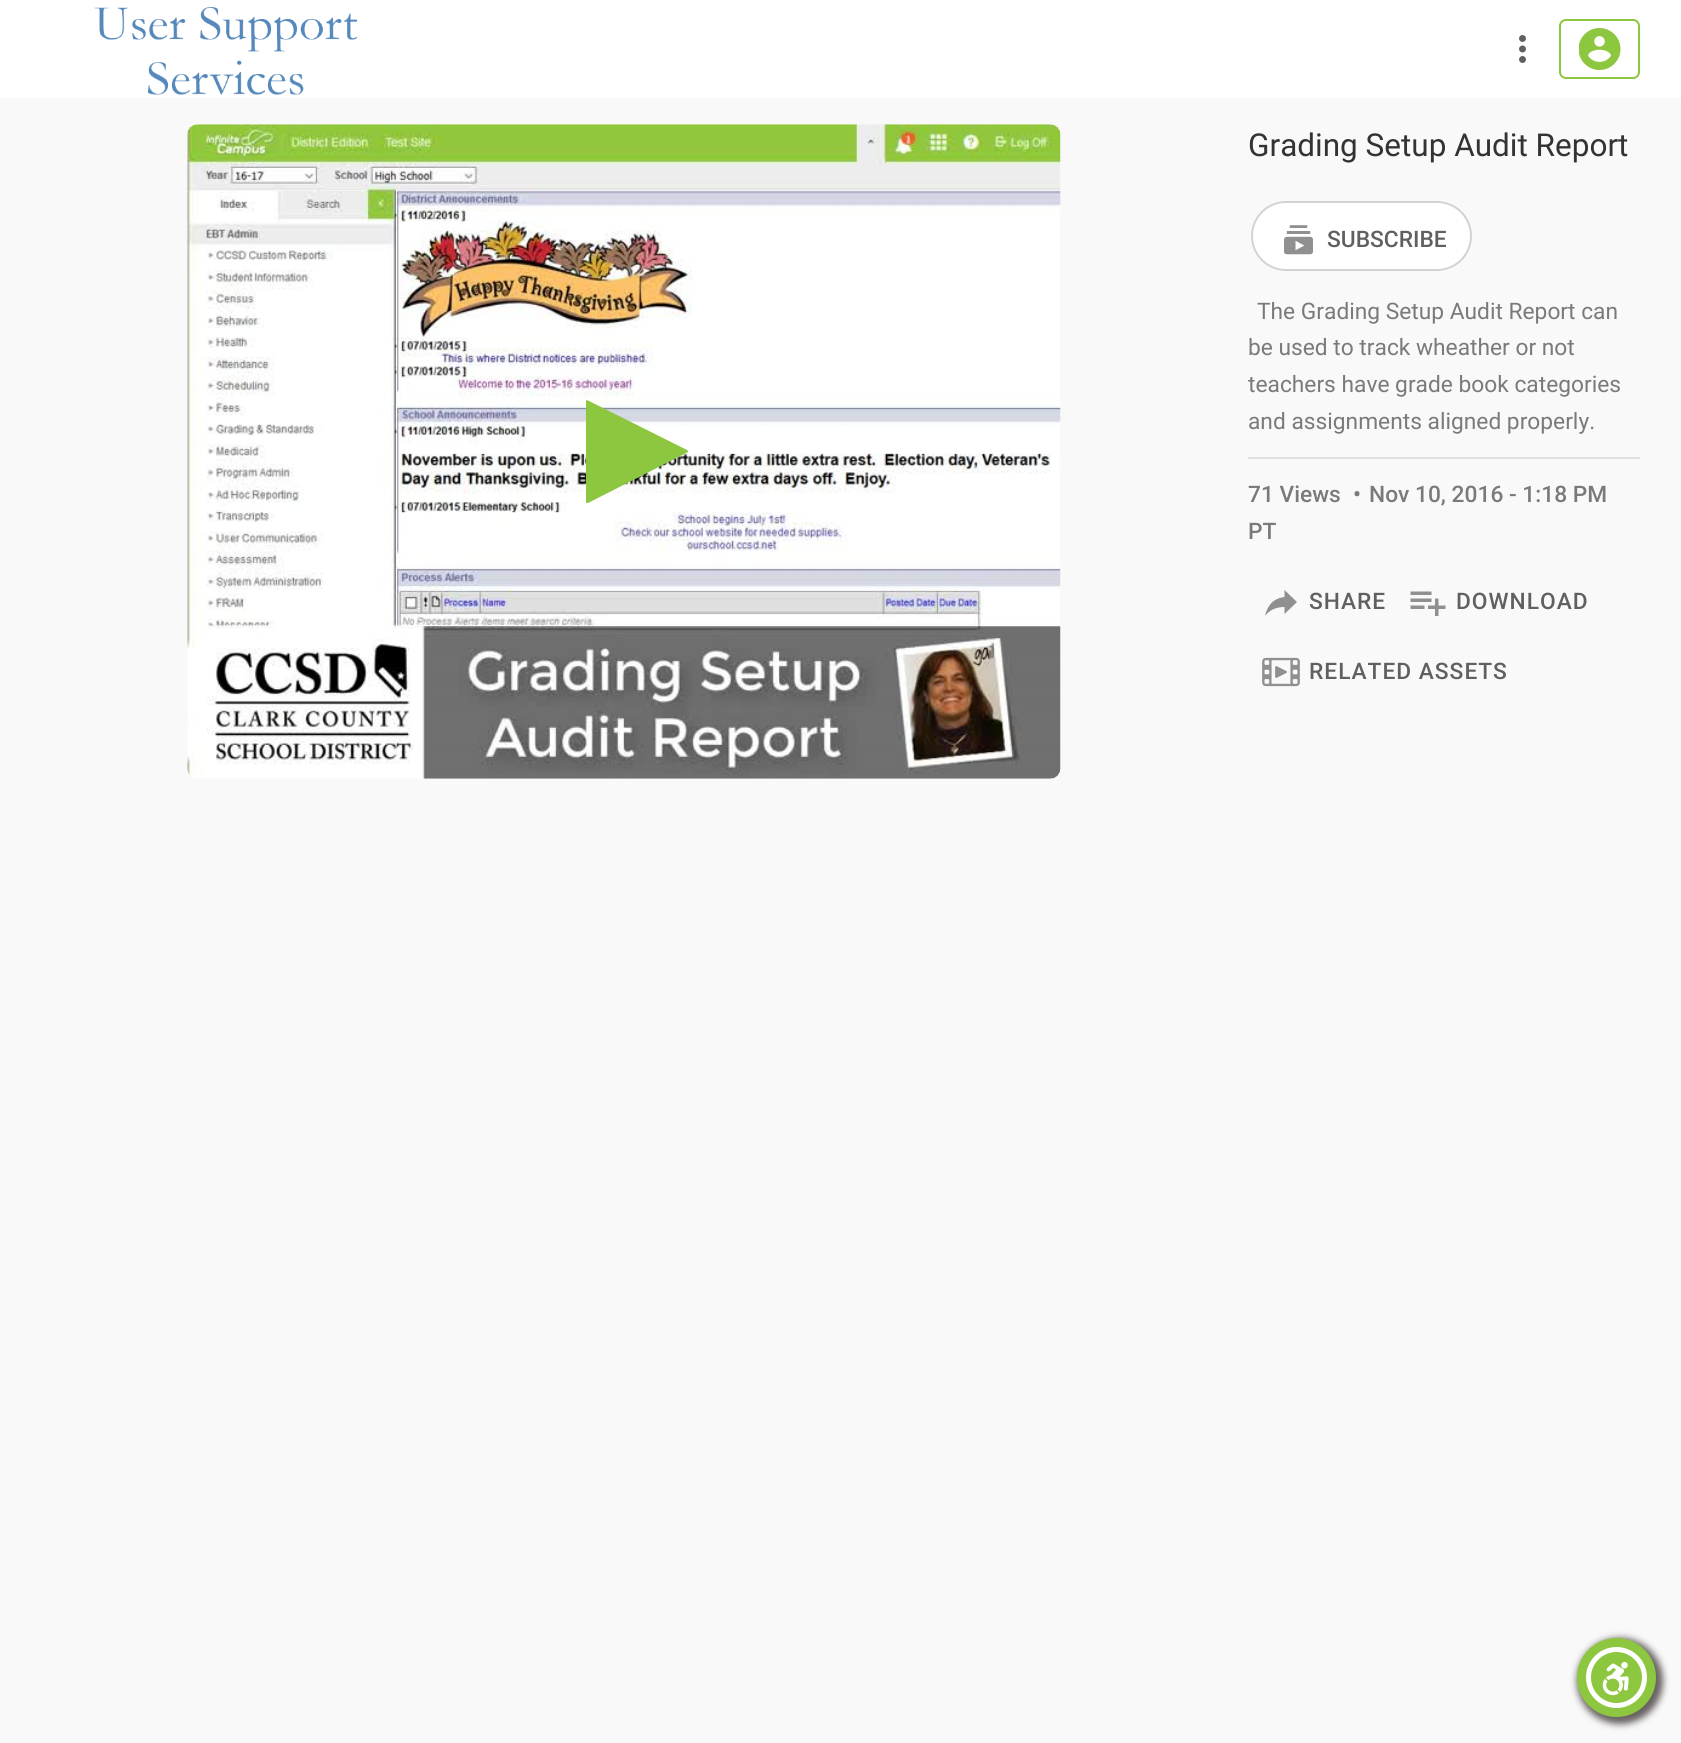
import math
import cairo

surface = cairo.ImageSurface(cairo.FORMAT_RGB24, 1681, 1743)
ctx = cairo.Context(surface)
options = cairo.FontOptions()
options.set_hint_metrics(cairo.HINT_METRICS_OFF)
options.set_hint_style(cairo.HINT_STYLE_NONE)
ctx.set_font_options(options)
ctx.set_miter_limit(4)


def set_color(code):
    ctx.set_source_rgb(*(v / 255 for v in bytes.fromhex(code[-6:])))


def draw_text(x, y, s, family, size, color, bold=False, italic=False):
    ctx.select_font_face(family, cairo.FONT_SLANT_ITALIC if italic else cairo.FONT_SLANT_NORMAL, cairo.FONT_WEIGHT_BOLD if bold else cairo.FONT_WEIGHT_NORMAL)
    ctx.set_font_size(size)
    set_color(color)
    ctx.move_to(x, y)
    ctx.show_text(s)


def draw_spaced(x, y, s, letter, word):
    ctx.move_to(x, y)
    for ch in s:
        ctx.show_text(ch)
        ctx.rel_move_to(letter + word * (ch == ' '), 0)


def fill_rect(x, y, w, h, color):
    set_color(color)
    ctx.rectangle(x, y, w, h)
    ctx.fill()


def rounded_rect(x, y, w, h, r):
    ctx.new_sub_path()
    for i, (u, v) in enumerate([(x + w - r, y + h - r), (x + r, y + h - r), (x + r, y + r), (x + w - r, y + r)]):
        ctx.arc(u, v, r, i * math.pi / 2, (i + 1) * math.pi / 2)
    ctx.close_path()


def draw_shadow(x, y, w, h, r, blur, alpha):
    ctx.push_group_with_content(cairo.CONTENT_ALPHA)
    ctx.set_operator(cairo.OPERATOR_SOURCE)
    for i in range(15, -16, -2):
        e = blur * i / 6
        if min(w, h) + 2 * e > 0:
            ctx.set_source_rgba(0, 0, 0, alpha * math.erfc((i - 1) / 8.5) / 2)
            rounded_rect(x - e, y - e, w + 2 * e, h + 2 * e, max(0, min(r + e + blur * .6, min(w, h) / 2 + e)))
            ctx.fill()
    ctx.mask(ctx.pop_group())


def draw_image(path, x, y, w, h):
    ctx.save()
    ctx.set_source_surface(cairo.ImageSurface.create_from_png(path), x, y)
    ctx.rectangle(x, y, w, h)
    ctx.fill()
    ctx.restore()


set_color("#f9f9f9")
ctx.paint()
fill_rect(0, 0, 1681, 98, "#ffffff")
draw_image("assets/img1.png", 94, 7, 264, 88)
draw_image("assets/img2.png", 1519, 35, 7, 28)
rounded_rect(1560, 20, 79, 58, 6)
set_color("#8dc63f")
ctx.stroke()
draw_image("assets/img3.png", 1579, 28, 42, 42)
draw_image("assets/img4.png", 187, 124, 874, 655)
ctx.new_path()
ctx.move_to(588, 503)
ctx.curve_to(587, 503, 586, 503, 586, 502)
ctx.line_to(586, 401)
ctx.curve_to(586, 401, 587, 400, 587, 400)
ctx.line_to(687, 450)
ctx.curve_to(688, 451, 689, 452, 688, 452)
ctx.close_path()
ctx.fill()
fill_rect(1248, 457, 392, 2, "#e0e0e0")
draw_text(1248, 156, "Grading Setup Audit Report", "Roboto", 31.5, "#333333")
set_color("#ffffff")
rounded_rect(1252, 202, 219, 68, 34)
ctx.fill_preserve()
set_color("#d3d3d3")
ctx.stroke()
draw_image("assets/img5.png", 1284, 225, 29, 30)
draw_text(1327, 247, "SUBSCRIBE", "Roboto Medium", 22.75, "#606060")
draw_text(1257, 319, "The Grading Setup Audit Report can", "Roboto", 22.75, "#7a7a7a")
draw_text(1248, 355, "be used to track wheather or not", "Roboto", 22.75, "#7a7a7a")
draw_text(1248, 392, "teachers have grade book categories", "Roboto", 22.75, "#7a7a7a")
draw_text(1248, 429, "and assignments aligned properly.", "Roboto", 22.75, "#7a7a7a")
draw_text(1248, 502, "71 Views", "Roboto Medium", 22.75, "#7a7a7a")
draw_text(1353, 502, "•", "Roboto Medium", 22.75, "#7a7a7a")
draw_text(1369, 502, "Nov 10, 2016 - 1:18 PM", "Roboto Medium", 22.75, "#7a7a7a")
draw_text(1248, 539, "PT", "Roboto Medium", 22.75, "#7a7a7a")
set_color("#909090")
ctx.new_path()
ctx.move_to(1284.5, 597)
ctx.line_to(1284.5, 590)
ctx.line_to(1297, 602)
ctx.line_to(1284.5, 614)
ctx.line_to(1284.5, 607)
ctx.curve_to(1276, 607, 1269.5, 610, 1265, 616)
ctx.curve_to(1267, 607, 1272, 598.5, 1284.5, 597)
ctx.close_path()
ctx.fill()
set_color("#606060")
draw_spaced(1309, 609, "SHARE", 1, 0)
draw_image("assets/img6.png", 1410, 591, 36, 25)
draw_spaced(1456, 609, "DOWNLOAD", 1, 0)
draw_image("assets/img7.png", 1262, 657, 38, 30)
draw_spaced(1309, 679, "RELATED ASSETS", 1, 0)
set_color("#676161")
draw_shadow(1577, 1638, 86, 86, 43, 3.5, 1)
set_color("#8dc63f")
ctx.arc(1616.5, 1677.5, 39.5, 0, 2 * math.pi)
ctx.fill()
ctx.arc(1616.5, 1677.5, 28, 0, 2 * math.pi)
set_color("#ffffff")
ctx.set_line_width(5)
ctx.stroke()
draw_image("assets/img8.png", 1602, 1661, 27, 35)
surface.write_to_png("output.png")
